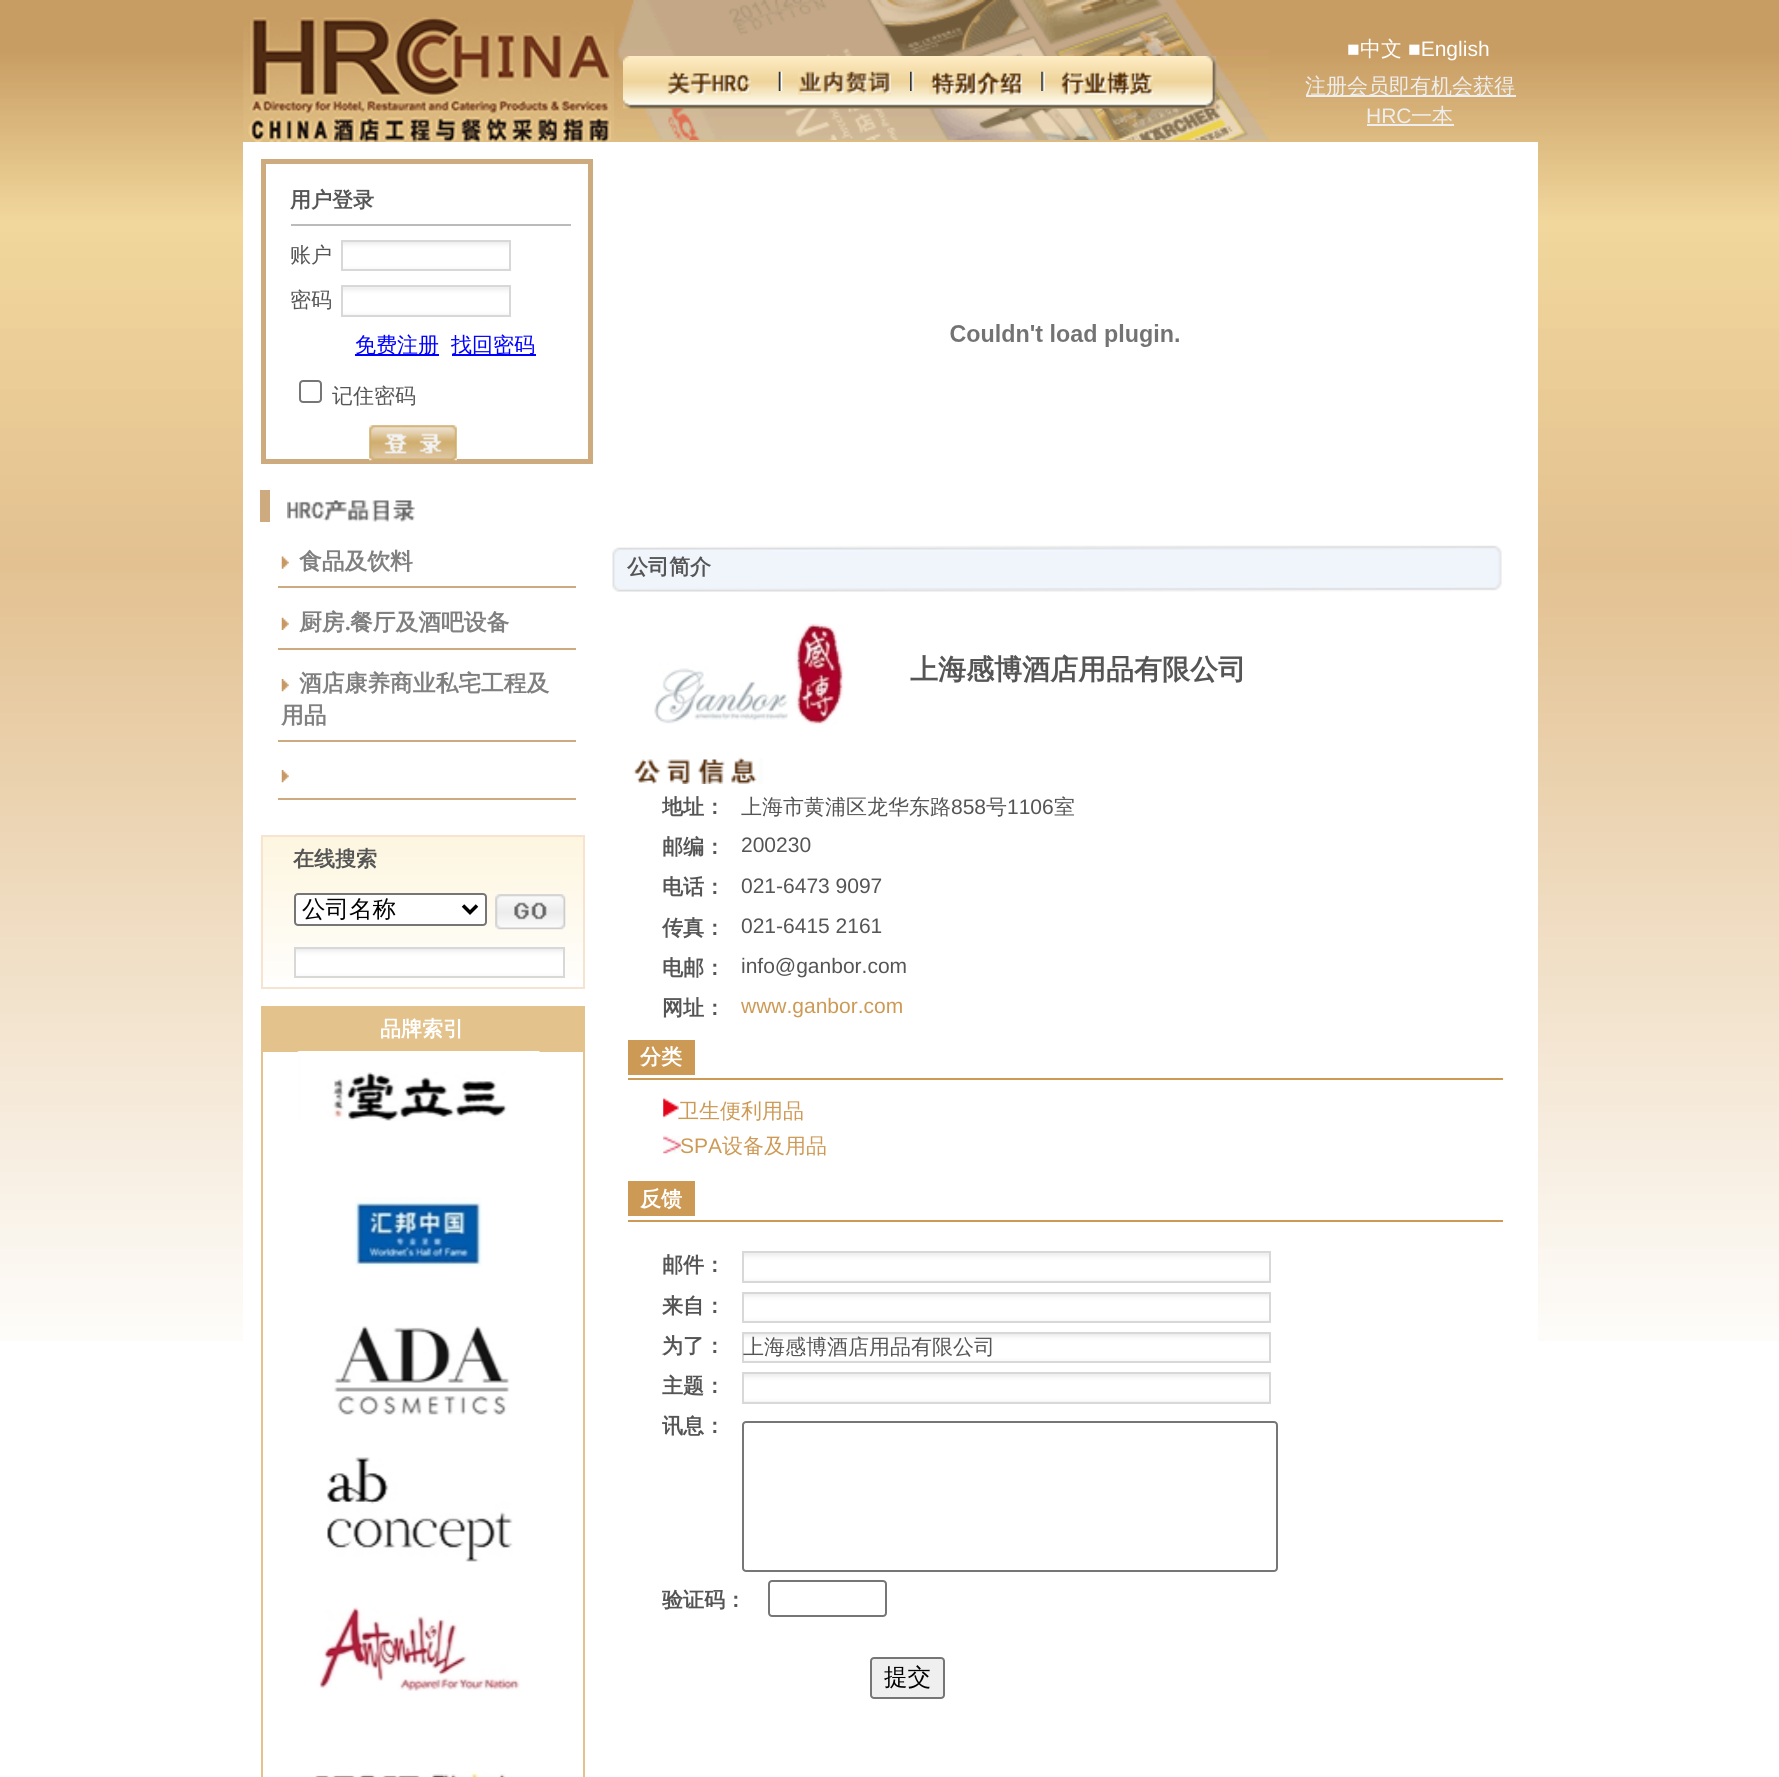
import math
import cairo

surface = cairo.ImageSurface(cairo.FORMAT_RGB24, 1779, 1777)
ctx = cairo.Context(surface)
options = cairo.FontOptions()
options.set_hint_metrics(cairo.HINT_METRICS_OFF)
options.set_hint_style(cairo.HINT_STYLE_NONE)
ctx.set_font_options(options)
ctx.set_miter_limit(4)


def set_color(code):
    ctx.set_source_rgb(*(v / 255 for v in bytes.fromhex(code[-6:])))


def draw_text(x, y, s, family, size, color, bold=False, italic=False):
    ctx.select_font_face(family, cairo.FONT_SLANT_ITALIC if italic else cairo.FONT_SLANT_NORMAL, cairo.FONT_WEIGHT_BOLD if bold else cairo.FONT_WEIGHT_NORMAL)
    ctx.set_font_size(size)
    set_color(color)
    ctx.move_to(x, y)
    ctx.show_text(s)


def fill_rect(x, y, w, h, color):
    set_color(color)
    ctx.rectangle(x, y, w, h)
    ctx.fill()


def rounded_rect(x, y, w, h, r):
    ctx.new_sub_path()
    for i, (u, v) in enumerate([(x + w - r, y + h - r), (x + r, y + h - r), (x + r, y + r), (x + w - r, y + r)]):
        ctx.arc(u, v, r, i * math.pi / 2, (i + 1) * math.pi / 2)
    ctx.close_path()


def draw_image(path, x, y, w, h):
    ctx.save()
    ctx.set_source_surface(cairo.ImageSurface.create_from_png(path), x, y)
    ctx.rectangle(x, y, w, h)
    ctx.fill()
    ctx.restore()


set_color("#ffffff")
ctx.paint()
draw_image("assets/img1.png", 0, 0, 1779, 1341)
draw_image("assets/img2.png", 243, 17, 371, 125)
draw_image("assets/img3.png", 617, 0, 652, 140)
draw_image("assets/img4.png", 623, 56, 594, 53)
draw_image("assets/img5.png", 666, 71, 85, 24)
draw_image("assets/img6.png", 778, 71, 5, 20)
draw_image("assets/img7.png", 798, 71, 93, 24)
draw_image("assets/img8.png", 910, 71, 4, 20)
draw_image("assets/img9.png", 929, 71, 93, 24)
draw_image("assets/img10.png", 1041, 71, 4, 20)
draw_image("assets/img11.png", 1060, 71, 94, 24)
draw_text(1347, 56, "■", "Liberation Sans", 21, "#ffffff")
draw_text(1360, 56, "中文", "WenQuanYi Zen Hei Medium", 21, "#ffffff")
draw_text(1408, 56, "■English", "Liberation Sans", 21, "#ffffff")
fill_rect(1306, 95, 210, 2, "#eeeeee")
draw_text(1305, 93, "注册会员即有机会获得", "WenQuanYi Zen Hei Medium", 21, "#eeeeee")
draw_text(1366, 123, "HRC", "Liberation Sans", 21, "#eeeeee")
fill_rect(1367, 124, 87, 2, "#eeeeee")
draw_text(1411, 123, "一本", "WenQuanYi Zen Hei Medium", 21, "#eeeeee")
fill_rect(243, 142, 1295, 1199, "#ffffff")
ctx.rectangle(263.5, 161.5, 327, 300)
set_color("#cdab7e")
ctx.set_line_width(5)
ctx.stroke()
fill_rect(291, 224, 280, 2, "#bbbbbb")
draw_text(290, 207, "用户登录", "WenQuanYi Zen Hei", 21, "#555555", bold=True)
draw_text(290, 262, "账户", "WenQuanYi Zen Hei Medium", 21, "#555555")
draw_image("assets/img12.png", 343, 242, 166, 27)
ctx.rectangle(342, 241, 168, 29)
set_color("#d8d8d8")
ctx.set_line_width(2)
ctx.stroke()
draw_text(290, 307, "密码", "WenQuanYi Zen Hei Medium", 21, "#555555")
draw_image("assets/img13.png", 343, 287, 166, 28)
ctx.rectangle(342, 286, 168, 30)
set_color("#d8d8d8")
ctx.stroke()
fill_rect(355, 354, 84, 2, "#0000ff")
draw_text(355, 352, "免费注册", "WenQuanYi Zen Hei Medium", 21, "#0000ff")
fill_rect(452, 354, 84, 2, "#0000ff")
draw_text(451, 352, "找回密码", "WenQuanYi Zen Hei Medium", 21, "#0000ff")
rounded_rect(300, 381, 21, 21, 3)
set_color("#767676")
ctx.stroke()
draw_text(332, 403, "记住密码", "WenQuanYi Zen Hei Medium", 21, "#555555")
draw_image("assets/img14.png", 369, 425, 88, 36)
fill_rect(260, 490, 10, 32, "#cdab7e")
draw_image("assets/img15.png", 287, 500, 128, 22)
fill_rect(278, 586, 298, 2, "#cdab7e")
draw_image("assets/img16.png", 281, 556, 8, 13)
draw_text(299, 569, "食品及饮料", "WenQuanYi Zen Hei", 22.75, "#808080", bold=True)
fill_rect(278, 648, 298, 2, "#cdab7e")
draw_image("assets/img17.png", 281, 617, 8, 13)
draw_text(299, 630, "厨房", "WenQuanYi Zen Hei", 22.75, "#808080", bold=True)
draw_text(345, 630, ".", "Liberation Serif", 22.75, "#808080", bold=True)
draw_text(350, 630, "餐厅及酒吧设备", "WenQuanYi Zen Hei", 22.75, "#808080", bold=True)
fill_rect(278, 740, 298, 2, "#cdab7e")
draw_image("assets/img18.png", 281, 679, 8, 13)
draw_text(299, 691, "酒店康养商业私宅工程及", "WenQuanYi Zen Hei", 22.75, "#808080", bold=True)
draw_text(281, 723, "用品", "WenQuanYi Zen Hei", 22.75, "#808080", bold=True)
fill_rect(278, 798, 298, 2, "#cdab7e")
draw_image("assets/img18.png", 281, 770, 8, 13)
draw_image("assets/img19.png", 260, 836, 323, 144)
ctx.rectangle(262, 836, 322, 152)
set_color("#f7e4d0")
ctx.stroke()
draw_text(293, 866, "在线搜索", "WenQuanYi Zen Hei", 21, "#555555", bold=True)
set_color("#ffffff")
rounded_rect(295, 894, 191, 31, 3)
ctx.fill_preserve()
set_color("#767676")
ctx.stroke()
ctx.new_path()
ctx.move_to(463, 905.5)
ctx.line_to(470, 912.5)
ctx.line_to(477, 905.5)
set_color("#000000")
ctx.set_line_width(3.5)
ctx.stroke()
draw_text(302, 917, "公司名称", "WenQuanYi Zen Hei Medium", 23.5, "#000000")
draw_image("assets/img20.png", 495, 894, 71, 36)
draw_image("assets/img21.png", 296, 947, 270, 31)
ctx.rectangle(295, 948, 269, 29)
set_color("#d8d8d8")
ctx.set_line_width(2)
ctx.stroke()
ctx.rectangle(262, 1007, 322, 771)
set_color("#e3c28c")
ctx.stroke()
fill_rect(263, 1008, 320, 44, "#e3c28c")
draw_text(380, 1036, "品牌索引", "WenQuanYi Zen Hei", 21, "#ffffff", bold=True)
draw_image("assets/img22.png", 297, 1051, 243, 70)
draw_image("assets/img23.png", 354, 1197, 128, 70)
draw_image("assets/img24.png", 334, 1326, 176, 89)
draw_image("assets/img25.png", 327, 1457, 186, 105)
draw_image("assets/img26.png", 318, 1607, 202, 84)
draw_image("assets/img27.png", 315, 1771, 191, 6)
draw_image("assets/img28.png", 950, 324, 229, 23)
draw_image("assets/img29.png", 612, 545, 890, 47)
draw_text(627, 574, "公司简介", "WenQuanYi Zen Hei", 21, "#555555", bold=True)
draw_image("assets/img30.png", 654, 623, 190, 102)
draw_text(910, 679, "上海感博酒店用品有限公司", "WenQuanYi Zen Hei", 28, "#555555", bold=True)
draw_image("assets/img31.png", 633, 757, 130, 27)
draw_text(662, 814, "地址：", "WenQuanYi Zen Hei", 21, "#555555", bold=True)
draw_text(741, 814, "上海市黄浦区龙华东路", "WenQuanYi Zen Hei Medium", 21, "#555555")
draw_text(951, 814, "858", "Liberation Sans", 21, "#555555")
draw_text(986, 814, "号", "WenQuanYi Zen Hei Medium", 21, "#555555")
draw_text(1007, 814, "1106", "Liberation Sans", 21, "#555555")
draw_text(1054, 814, "室", "WenQuanYi Zen Hei Medium", 21, "#555555")
draw_text(662, 854, "邮编：", "WenQuanYi Zen Hei", 21, "#555555", bold=True)
draw_text(741, 852, "200230", "Liberation Sans", 21, "#555555")
draw_text(662, 894, "电话：", "WenQuanYi Zen Hei", 21, "#555555", bold=True)
draw_text(741, 893, "021-6473 9097", "Liberation Sans", 21, "#555555")
draw_text(662, 935, "传真：", "WenQuanYi Zen Hei", 21, "#555555", bold=True)
draw_text(741, 933, "021-6415 2161", "Liberation Sans", 21, "#555555")
draw_text(662, 975, "电邮：", "WenQuanYi Zen Hei", 21, "#555555", bold=True)
draw_text(741, 973, "info@ganbor.com", "Liberation Sans", 21, "#555555")
draw_text(662, 1015, "网址：", "WenQuanYi Zen Hei", 21, "#555555", bold=True)
draw_text(741, 1013, "www.ganbor.com", "Liberation Sans", 21, "#cd9a56")
fill_rect(628, 1078, 875, 2, "#cd9a56")
fill_rect(628, 1040, 67, 35, "#cd9a56")
draw_text(640, 1064, "分类", "WenQuanYi Zen Hei", 21, "#ffffff", bold=True)
draw_image("assets/img32.png", 663, 1097, 16, 22)
draw_text(678, 1118, "卫生便利用品", "WenQuanYi Zen Hei Medium", 21, "#cd9a56")
draw_image("assets/img33.png", 663, 1135, 18, 19)
draw_text(680, 1153, "SPA", "Liberation Sans", 21, "#cd9a56")
draw_text(722, 1153, "设备及用品", "WenQuanYi Zen Hei Medium", 21, "#cd9a56")
fill_rect(628, 1220, 875, 2, "#cd9a56")
fill_rect(628, 1181, 67, 35, "#cd9a56")
draw_text(640, 1206, "反馈", "WenQuanYi Zen Hei", 21, "#ffffff", bold=True)
draw_text(662, 1272, "邮件：", "WenQuanYi Zen Hei", 21, "#555555", bold=True)
draw_image("assets/img34.png", 744, 1253, 525, 28)
ctx.rectangle(743, 1252, 527, 30)
set_color("#d8d8d8")
ctx.stroke()
draw_text(662, 1313, "来自：", "WenQuanYi Zen Hei", 21, "#555555", bold=True)
draw_image("assets/img35.png", 744, 1294, 525, 27)
ctx.rectangle(743, 1293, 527, 29)
set_color("#d8d8d8")
ctx.stroke()
draw_text(662, 1353, "为了：", "WenQuanYi Zen Hei", 21, "#555555", bold=True)
draw_image("assets/img36.png", 744, 1334, 525, 27)
ctx.rectangle(743, 1333, 527, 29)
set_color("#d8d8d8")
ctx.stroke()
draw_text(743, 1354, "上海感博酒店用品有限公司", "WenQuanYi Zen Hei Medium", 21, "#555555")
draw_text(662, 1393, "主题：", "WenQuanYi Zen Hei", 21, "#555555", bold=True)
draw_image("assets/img37.png", 744, 1374, 525, 28)
ctx.rectangle(743, 1373, 527, 30)
set_color("#d8d8d8")
ctx.stroke()
draw_text(662, 1433, "讯息：", "WenQuanYi Zen Hei", 21, "#555555", bold=True)
rounded_rect(743, 1422, 534, 149, 3)
set_color("#767676")
ctx.stroke()
draw_text(662, 1607, "验证码：", "WenQuanYi Zen Hei", 21, "#555555", bold=True)
rounded_rect(769, 1581, 117, 35, 3)
set_color("#767676")
ctx.stroke()
set_color("#efefef")
rounded_rect(871, 1658, 73, 40, 3)
ctx.fill_preserve()
set_color("#767676")
ctx.stroke()
draw_text(884, 1685, "提交", "WenQuanYi Zen Hei Medium", 23.5, "#000000")
surface.write_to_png("output.png")
